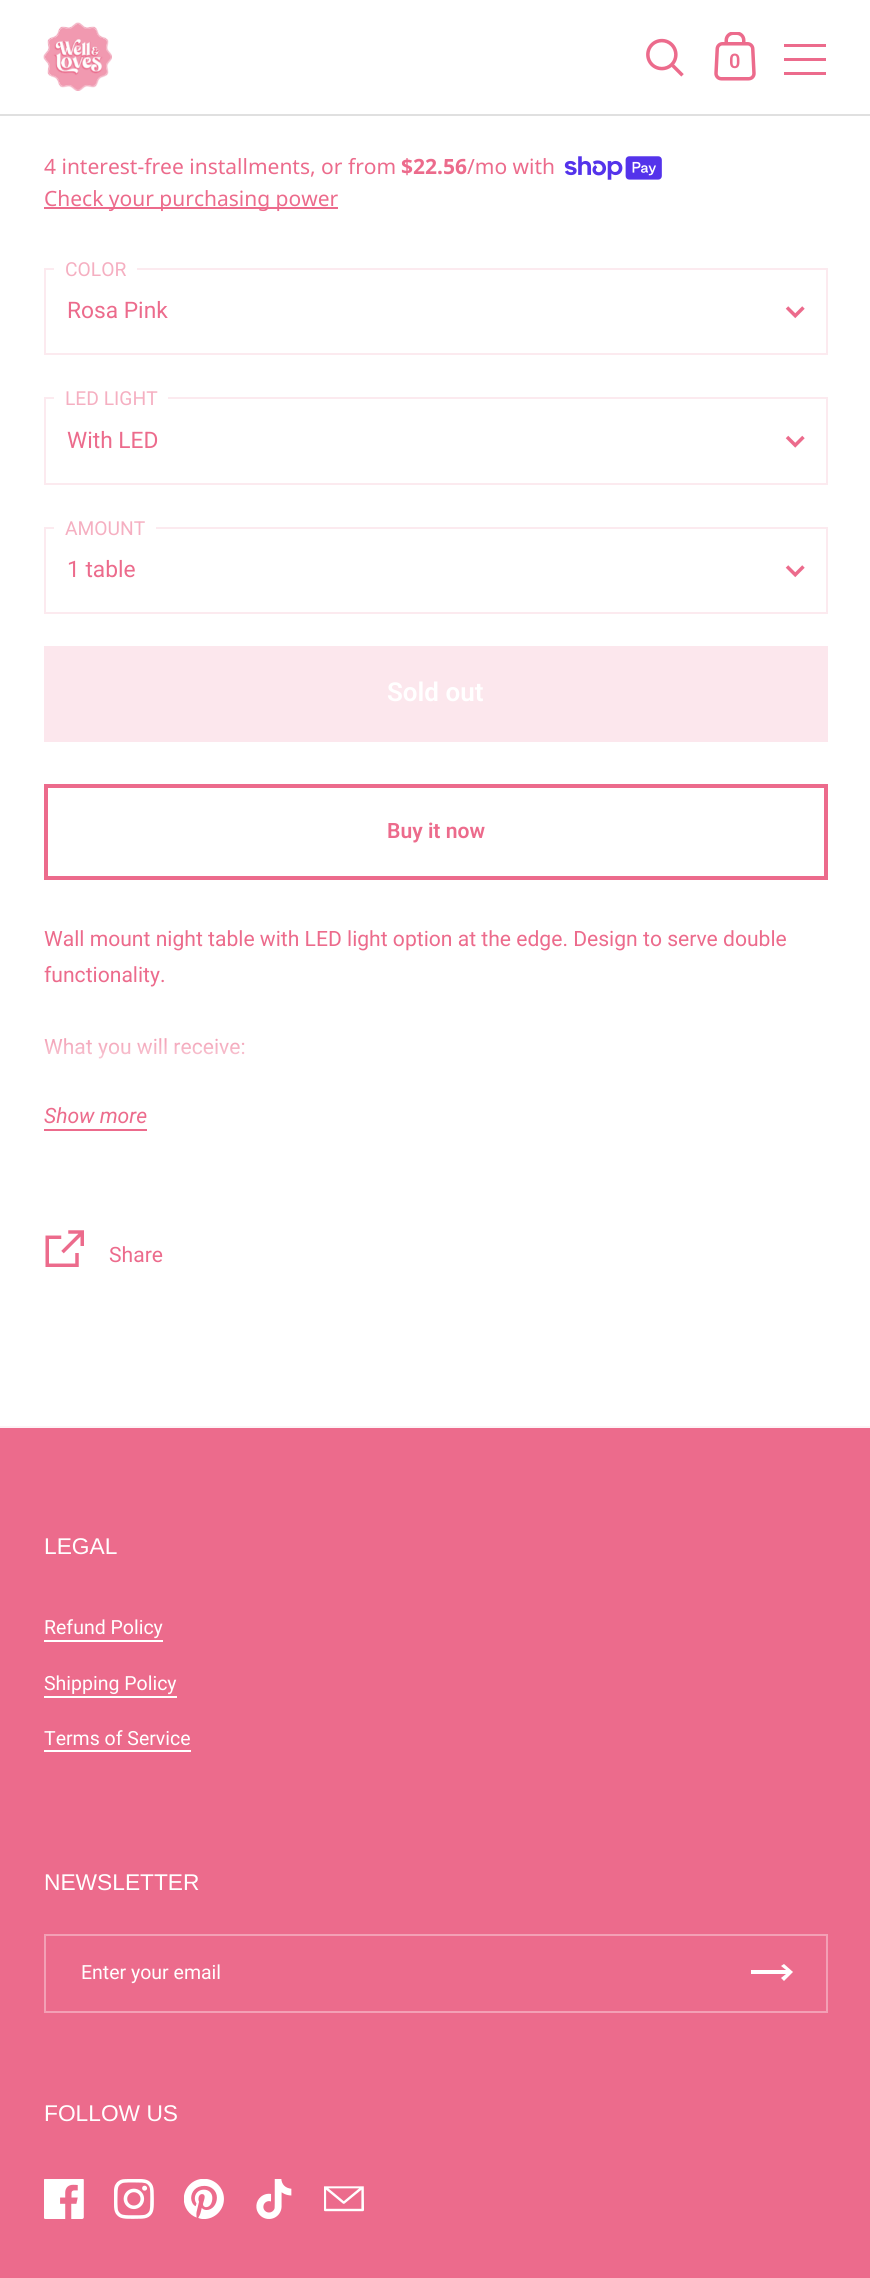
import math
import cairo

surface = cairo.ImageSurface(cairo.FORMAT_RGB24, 870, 2278)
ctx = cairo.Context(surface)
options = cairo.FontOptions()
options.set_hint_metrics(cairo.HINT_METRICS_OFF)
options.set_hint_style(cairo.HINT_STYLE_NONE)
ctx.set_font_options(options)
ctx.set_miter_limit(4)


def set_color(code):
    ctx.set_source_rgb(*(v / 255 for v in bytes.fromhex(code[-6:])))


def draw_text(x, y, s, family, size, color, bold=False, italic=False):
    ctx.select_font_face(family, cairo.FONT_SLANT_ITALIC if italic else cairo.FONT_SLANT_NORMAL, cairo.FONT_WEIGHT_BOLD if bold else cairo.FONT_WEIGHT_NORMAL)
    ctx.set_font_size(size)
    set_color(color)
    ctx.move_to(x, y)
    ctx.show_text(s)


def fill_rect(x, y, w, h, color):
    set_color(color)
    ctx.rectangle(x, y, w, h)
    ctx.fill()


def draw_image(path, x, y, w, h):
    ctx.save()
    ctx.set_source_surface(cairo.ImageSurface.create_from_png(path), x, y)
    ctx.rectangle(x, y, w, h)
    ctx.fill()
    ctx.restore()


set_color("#ffffff")
ctx.paint()
fill_rect(0, 114, 870, 2, "#e0e0e0")
draw_image("assets/img1.png", 43, 22, 69, 69)
draw_image("assets/img2.png", 646, 38, 38, 39)
draw_image("assets/img3.png", 714, 32, 42, 49)
draw_text(729, 68, "0", "Roboto SemiBold", 20, "#ec6b8c")
fill_rect(784, 44, 42, 3, "#ec6b8c")
fill_rect(784, 58, 42, 3, "#ec6b8c")
fill_rect(784, 72, 42, 3, "#ec6b8c")
fill_rect(0, 1426, 870, 2, "#fdf3f6")
draw_text(44, 174, "4 interest-free installments, or from", "Noto Sans", 21, "#ec6b8c")
draw_text(401, 174, "$22.56", "Noto Sans", 21, "#ec6b8c", bold=True)
draw_text(467, 174, "/mo with", "Noto Sans", 21, "#ec6b8c")
draw_image("assets/img4.png", 564, 156, 98, 24)
fill_rect(44, 207, 294, 2, "#ec6b8c")
draw_text(44, 206, "Check your purchasing power", "Noto Sans", 21, "#ec6b8c")
draw_image("assets/img5.png", 785, 306, 20, 13)
ctx.rectangle(45, 269, 782, 85)
set_color("#fceaef")
ctx.stroke()
fill_rect(54, 268, 83, 2, "#ffffff")
draw_text(65, 276, "COLOR", "Roboto", 19.25, "#f5afc1")
draw_text(67, 318, "Rosa Pink", "Roboto", 22.75, "#ec6b8c")
draw_image("assets/img6.png", 785, 435, 20, 13)
ctx.rectangle(45, 398, 782, 86)
set_color("#fceaef")
ctx.stroke()
fill_rect(54, 397, 114, 2, "#ffffff")
draw_text(65, 405, "LED LIGHT", "Roboto", 19.25, "#f5afc1")
draw_text(67, 448, "With LED", "Roboto", 22.75, "#ec6b8c")
draw_image("assets/img5.png", 785, 565, 20, 13)
ctx.rectangle(45, 528, 782, 85)
set_color("#fceaef")
ctx.stroke()
fill_rect(54, 527, 102, 2, "#ffffff")
draw_text(65, 535, "AMOUNT", "Roboto", 19.25, "#f5afc1")
draw_text(67, 577, "1 table", "Roboto", 22.75, "#ec6b8c")
fill_rect(44, 646, 784, 96, "#fce7ed")
draw_text(387, 701, "Sold out", "Roboto SemiBold", 26, "#ffffff")
ctx.rectangle(46, 786, 780, 92)
set_color("#ec6b8c")
ctx.set_line_width(4)
ctx.stroke()
draw_text(387, 838, "Buy it now", "Roboto SemiBold", 21.1, "#ec6b8c")
draw_text(44, 946, "Wall mount night table with LED light option at the edge. Design to serve double", "Roboto", 21.1, "#ec6b8c")
draw_text(44, 982, "functionality.", "Roboto", 21.1, "#ec6b8c")
draw_text(44, 1054, "What you will receive:", "Roboto", 21.1, "#ec6b8c")
gradient = cairo.LinearGradient(436, 1097, 436, 1010)
gradient.add_color_stop_rgba(0, 1, 1, 1, 1)
gradient.add_color_stop_rgba(0.1, 1, 1, 1, 1)
gradient.add_color_stop_rgba(1, 1, 1, 1, 0)
ctx.set_source(gradient)
ctx.rectangle(44, 1038, 201, 21)
ctx.fill()
fill_rect(44, 1129, 103, 2, "#ec6b8c")
draw_text(44, 1123, "Show more", "Roboto", 21.1, "#ec6b8c", italic=True)
draw_image("assets/img7.png", 45, 1230, 39, 37)
draw_text(109, 1262, "Share", "Roboto", 21.1, "#ec6b8c")
fill_rect(0, 1428, 870, 850, "#ec6b8c")
draw_text(44, 1554, "LEGAL", "Liberation Sans", 22.75, "#ffffff")
draw_text(44, 1634, "Refund Policy", "Roboto", 19.5, "#ffffff")
fill_rect(44, 1640, 119, 2, "#ffffff")
draw_text(44, 1690, "Shipping Policy", "Roboto", 19.5, "#ffffff")
fill_rect(44, 1696, 133, 2, "#ffffff")
draw_text(44, 1745, "Terms of Service", "Roboto", 19.5, "#ffffff")
fill_rect(44, 1750, 147, 2, "#ffffff")
draw_text(44, 1890, "NEWSLETTER", "Liberation Sans", 22.75, "#ffffff")
ctx.rectangle(45, 1935, 782, 77)
set_color("#f3a0b5")
ctx.set_line_width(2)
ctx.stroke()
draw_text(81, 1979, "Enter your email", "Roboto", 19.5, "#ffffff")
ctx.save()
ctx.rectangle(751, 1964, 42, 19)
ctx.clip()
ctx.set_fill_rule(cairo.FILL_RULE_EVEN_ODD)
ctx.new_path()
ctx.move_to(786, 1974)
ctx.line_to(781, 1978)
ctx.line_to(784, 1981)
ctx.line_to(793, 1972)
ctx.line_to(784, 1964)
ctx.line_to(781, 1966)
ctx.line_to(786, 1970)
ctx.line_to(733, 1970)
ctx.line_to(733, 1974)
ctx.close_path()
ctx.fill()
ctx.restore()
draw_text(44, 2121, "FOLLOW US", "Liberation Sans", 22.75, "#ffffff")
draw_image("assets/img8.png", 44, 2179, 40, 40)
draw_image("assets/img9.png", 114, 2179, 40, 40)
draw_image("assets/img10.png", 184, 2179, 40, 40)
draw_image("assets/img11.png", 256, 2179, 36, 40)
draw_image("assets/img12.png", 324, 2186, 40, 26)
surface.write_to_png("output.png")
